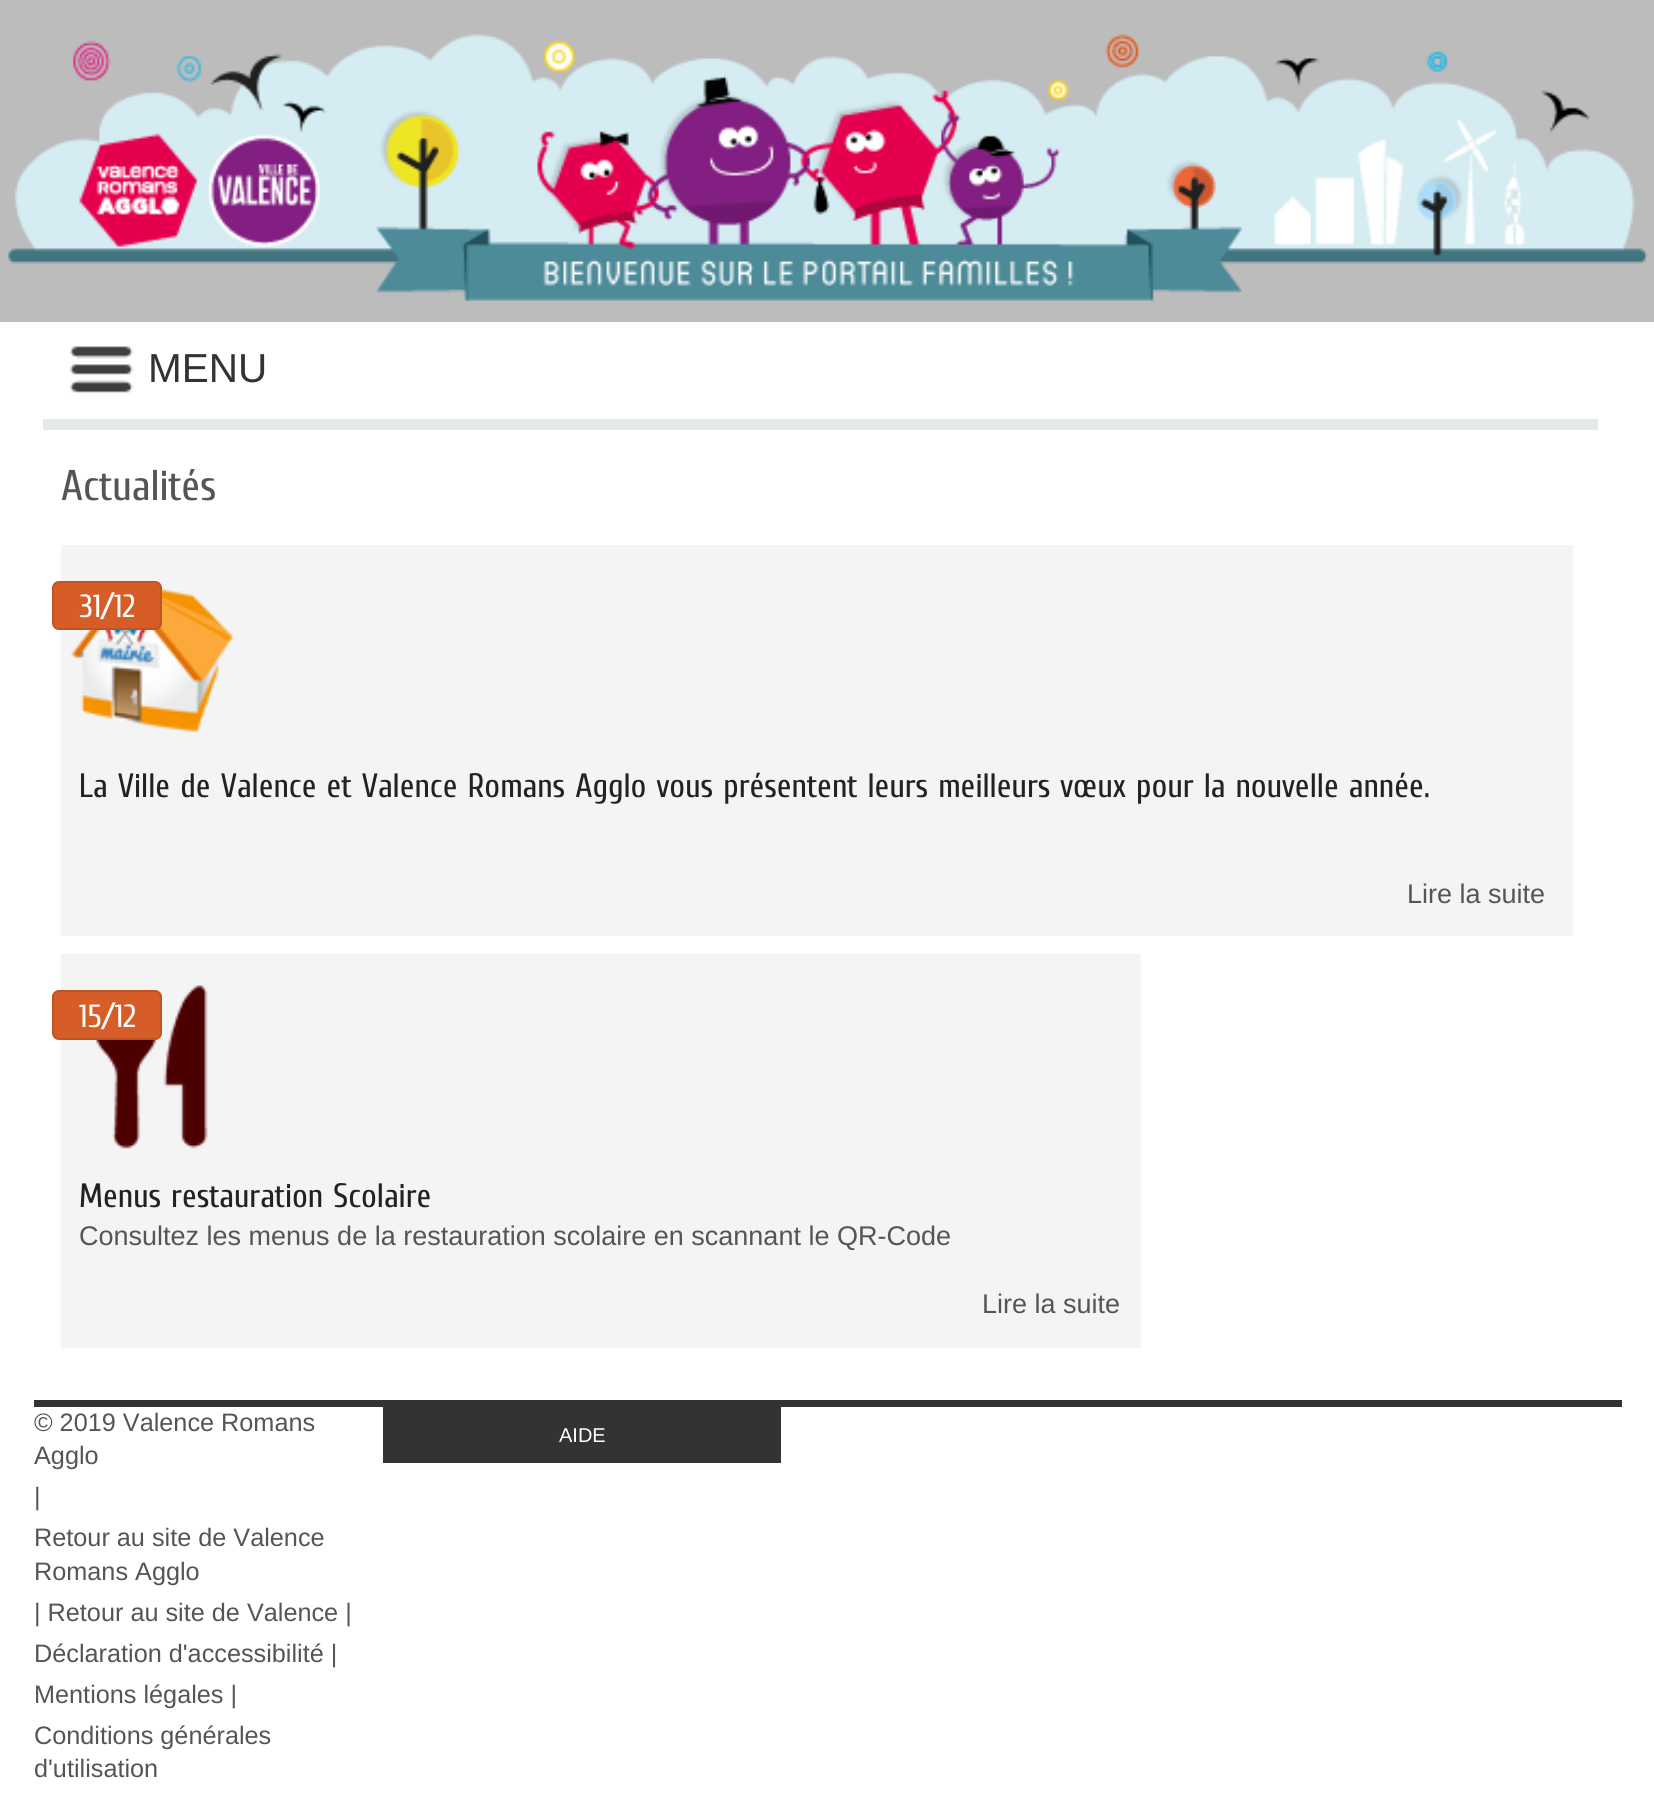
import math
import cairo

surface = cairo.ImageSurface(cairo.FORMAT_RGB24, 1654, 1804)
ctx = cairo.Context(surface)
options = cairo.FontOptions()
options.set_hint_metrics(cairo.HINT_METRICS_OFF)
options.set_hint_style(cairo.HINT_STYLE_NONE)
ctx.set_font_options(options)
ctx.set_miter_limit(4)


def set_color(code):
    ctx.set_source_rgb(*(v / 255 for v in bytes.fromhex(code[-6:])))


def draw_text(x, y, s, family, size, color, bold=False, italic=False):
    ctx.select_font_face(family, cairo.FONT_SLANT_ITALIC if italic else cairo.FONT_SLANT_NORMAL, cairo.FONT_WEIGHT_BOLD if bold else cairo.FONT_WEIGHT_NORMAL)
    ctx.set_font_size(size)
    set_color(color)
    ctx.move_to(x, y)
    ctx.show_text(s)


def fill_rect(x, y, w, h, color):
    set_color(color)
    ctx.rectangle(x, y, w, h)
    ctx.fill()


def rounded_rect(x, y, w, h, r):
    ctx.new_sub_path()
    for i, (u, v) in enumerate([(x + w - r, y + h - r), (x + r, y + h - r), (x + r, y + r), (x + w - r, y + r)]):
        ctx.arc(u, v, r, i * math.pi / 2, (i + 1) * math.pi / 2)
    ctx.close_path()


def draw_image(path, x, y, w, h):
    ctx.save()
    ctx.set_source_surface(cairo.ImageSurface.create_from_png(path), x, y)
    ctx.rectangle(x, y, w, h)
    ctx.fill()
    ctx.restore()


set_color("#ffffff")
ctx.paint()
fill_rect(0, 0, 1654, 322, "#bcbcbc")
draw_image("assets/img1.png", 8, 34, 1640, 269)
fill_rect(43, 419, 1555, 11, "#e5e9ea")
draw_image("assets/img2.png", 69, 346, 65, 47)
draw_text(148, 382, "MENU", "Liberation Sans", 40.5, "#333333")
draw_text(61, 500, "Actualités", "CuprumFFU", 43, "#555555")
fill_rect(61, 545, 1512, 391, "#f4f4f4")
draw_image("assets/img3.png", 71, 589, 164, 144)
set_color("#d65d27")
rounded_rect(53, 582, 108, 47, 6)
ctx.fill_preserve()
set_color("#c05423")
ctx.stroke()
draw_text(79, 617, "31/12", "CuprumFFU", 32, "#ffffff")
draw_text(79, 797, "La Ville de Valence et Valence Romans Agglo vous présentent leurs meilleurs vœux pour la nouvelle année.", "CuprumFFU", 33.75, "#222222")
draw_text(1407, 903, "Lire la suite", "Liberation Sans", 27, "#555555")
fill_rect(61, 954, 1080, 394, "#f4f4f4")
draw_image("assets/img4.png", 95, 985, 113, 164)
set_color("#d65d27")
rounded_rect(53, 991, 108, 48, 6)
ctx.fill_preserve()
set_color("#c05423")
ctx.stroke()
draw_text(79, 1027, "15/12", "CuprumFFU", 32, "#ffffff")
draw_text(79, 1207, "Menus restauration Scolaire", "CuprumFFU", 33.75, "#222222")
draw_text(79, 1245, "Consultez les menus de la restauration scolaire en scannant le QR-Code", "Liberation Sans", 27, "#555555")
draw_text(982, 1313, "Lire la suite", "Liberation Sans", 27, "#555555")
fill_rect(34, 1400, 1588, 7, "#333333")
draw_text(34, 1431, "© 2019 Valence Romans", "Liberation Sans", 25.25, "#555555")
draw_text(34, 1464, "Agglo", "Liberation Sans", 25.25, "#555555")
draw_text(34, 1505, "|", "Liberation Sans", 25.25, "#555555")
draw_text(34, 1546, "Retour au site de Valence", "Liberation Sans", 25.25, "#555555")
draw_text(34, 1580, "Romans Agglo", "Liberation Sans", 25.25, "#555555")
draw_text(34, 1621, "| Retour au site de Valence |", "Liberation Sans", 25.25, "#555555")
draw_text(34, 1662, "Déclaration d'accessibilité |", "Liberation Sans", 25.25, "#555555")
draw_text(34, 1703, "Mentions légales |", "Liberation Sans", 25.25, "#555555")
draw_text(34, 1744, "Conditions générales", "Liberation Sans", 25.25, "#555555")
draw_text(34, 1777, "d'utilisation", "Liberation Sans", 25.25, "#555555")
fill_rect(383, 1407, 398, 56, "#333333")
draw_text(559, 1442, "AIDE", "Liberation Sans", 20, "#ffffff")
surface.write_to_png("output.png")
